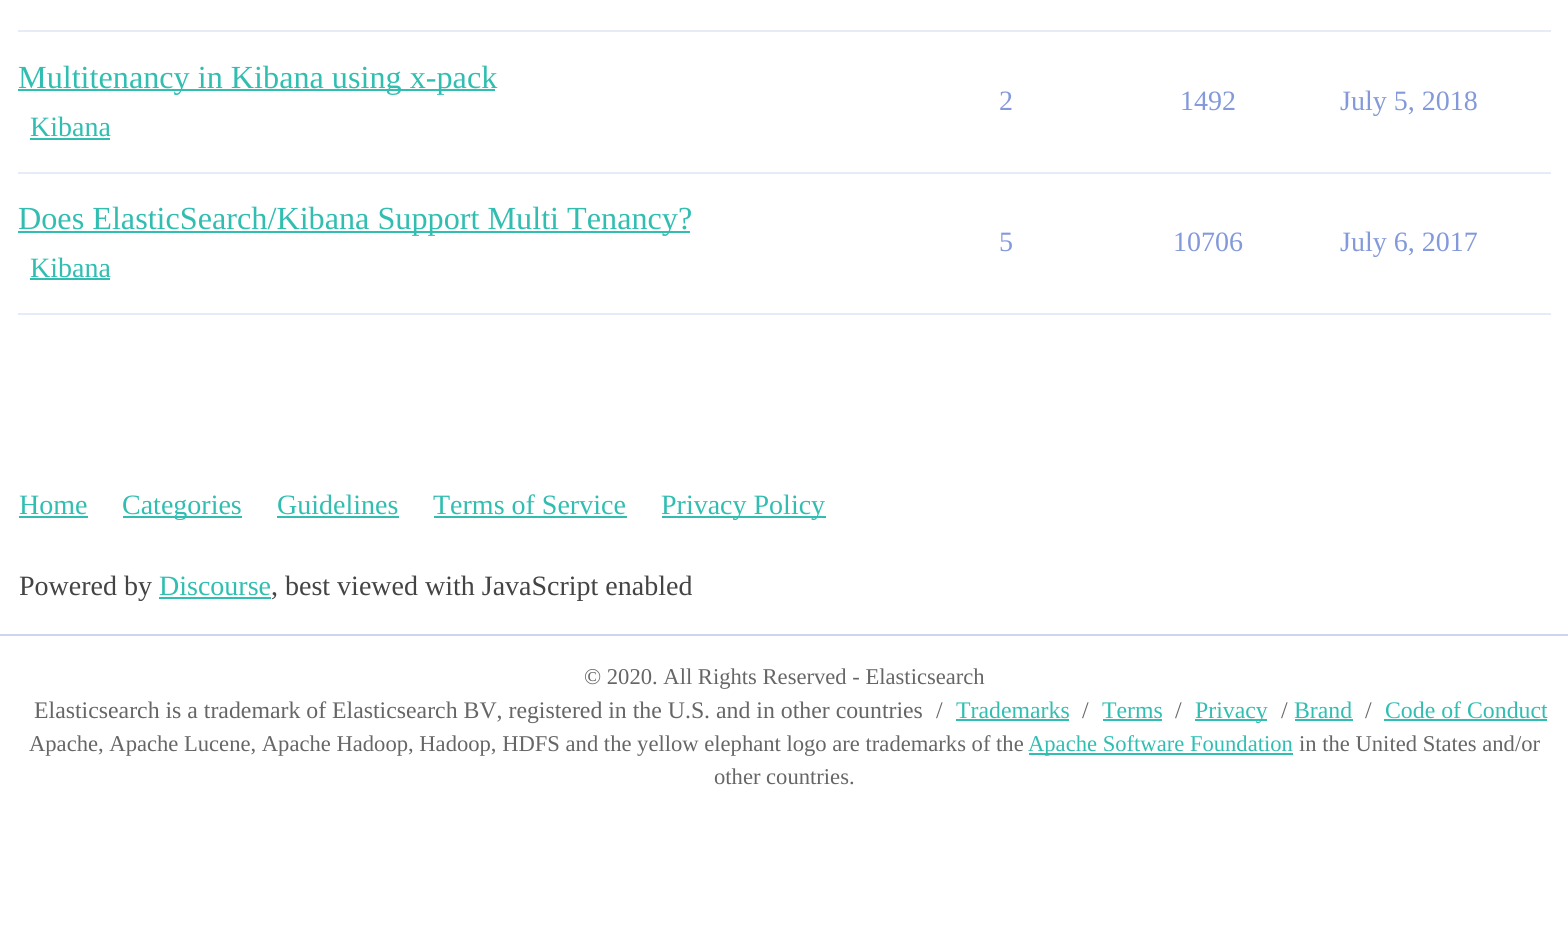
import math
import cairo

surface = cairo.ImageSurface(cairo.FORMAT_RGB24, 1568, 936)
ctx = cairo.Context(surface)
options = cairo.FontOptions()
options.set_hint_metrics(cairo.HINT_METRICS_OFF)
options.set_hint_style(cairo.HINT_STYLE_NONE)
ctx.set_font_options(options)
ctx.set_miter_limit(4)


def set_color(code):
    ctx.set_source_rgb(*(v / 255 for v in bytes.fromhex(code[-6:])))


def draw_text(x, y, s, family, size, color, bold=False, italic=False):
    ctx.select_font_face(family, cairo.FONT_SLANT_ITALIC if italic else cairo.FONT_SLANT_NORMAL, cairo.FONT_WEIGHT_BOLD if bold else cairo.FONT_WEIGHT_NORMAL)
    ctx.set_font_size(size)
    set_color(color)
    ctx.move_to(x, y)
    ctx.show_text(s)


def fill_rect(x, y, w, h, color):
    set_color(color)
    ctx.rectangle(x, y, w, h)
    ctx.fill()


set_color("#ffffff")
ctx.paint()
fill_rect(18, 30, 1533, 2, "#e6ebf8")
fill_rect(18, 172, 1533, 2, "#e6ebf8")
fill_rect(18, 89, 477, 2, "#31beb1")
draw_text(18, 88, "Multitenancy in Kibana using x-pack", "Liberation Serif", 32.2, "#31beb1")
draw_text(30, 136, "Kibana", "Liberation Serif", 28, "#31beb1")
fill_rect(30, 138, 80, 2, "#31beb1")
draw_text(999, 110, "2", "Liberation Serif", 28, "#8399da")
draw_text(1180, 110, "1492", "Liberation Serif", 28, "#8399da")
draw_text(1340, 110, "July 5, 2018", "Liberation Serif", 28, "#8399da")
fill_rect(18, 313, 1533, 2, "#e6ebf8")
fill_rect(18, 231, 672, 2, "#31beb1")
draw_text(18, 229, "Does ElasticSearch/Kibana Support Multi Tenancy?", "Liberation Serif", 32.2, "#31beb1")
draw_text(30, 277, "Kibana", "Liberation Serif", 28, "#31beb1")
fill_rect(30, 278, 80, 2, "#31beb1")
draw_text(999, 251, "5", "Liberation Serif", 28, "#8399da")
draw_text(1173, 251, "10706", "Liberation Serif", 28, "#8399da")
draw_text(1340, 251, "July 6, 2017", "Liberation Serif", 28, "#8399da")
draw_text(19, 514, "Home", "Liberation Serif", 28, "#31beb1")
fill_rect(19, 516, 69, 2, "#31beb1")
fill_rect(123, 516, 119, 2, "#31beb1")
draw_text(122, 514, "Categories", "Liberation Serif", 28, "#31beb1")
draw_text(277, 514, "Guidelines", "Liberation Serif", 28, "#31beb1")
fill_rect(277, 516, 122, 2, "#31beb1")
draw_text(433, 514, "Terms of Service", "Liberation Serif", 28, "#31beb1")
fill_rect(434, 516, 193, 2, "#31beb1")
fill_rect(662, 516, 164, 2, "#31beb1")
draw_text(661, 514, "Privacy Policy", "Liberation Serif", 28, "#31beb1")
draw_text(19, 595, "Powered by", "Liberation Serif", 28, "#444444")
draw_text(159, 595, "Discourse", "Liberation Serif", 28, "#31beb1")
fill_rect(159, 597, 112, 2, "#31beb1")
draw_text(271, 595, ", best viewed with JavaScript enabled", "Liberation Serif", 28, "#444444")
fill_rect(0, 634, 1568, 2, "#cdd6f0")
draw_text(584, 684, "© 2020. All Rights Reserved - Elasticsearch", "Liberation Serif", 22.6, "#666666")
draw_text(34, 718, "Elasticsearch is a trademark of Elasticsearch BV, registered in the U.S.", "Liberation Serif", 23.8, "#666666")
draw_text(716, 718, "and in other countries", "Liberation Serif", 23.8, "#666666")
draw_text(936, 718, "/", "Liberation Serif", 23.8, "#666666")
draw_text(956, 718, "Trademarks", "Liberation Serif", 23.8, "#31beb1")
fill_rect(956, 719, 113, 2, "#31beb1")
draw_text(1082, 718, "/", "Liberation Serif", 23.8, "#666666")
draw_text(1102, 718, "Terms", "Liberation Serif", 23.8, "#31beb1")
fill_rect(1103, 719, 59, 2, "#31beb1")
draw_text(1175, 718, "/", "Liberation Serif", 23.8, "#666666")
fill_rect(1195, 719, 72, 2, "#31beb1")
draw_text(1195, 718, "Privacy", "Liberation Serif", 23.8, "#31beb1")
draw_text(1281, 718, "/", "Liberation Serif", 23.8, "#666666")
draw_text(1294, 718, "Brand", "Liberation Serif", 23.8, "#31beb1")
fill_rect(1295, 719, 58, 2, "#31beb1")
draw_text(1365, 718, "/", "Liberation Serif", 23.8, "#666666")
draw_text(1385, 718, "Code of Conduct", "Liberation Serif", 23.8, "#31beb1")
fill_rect(1384, 719, 163, 2, "#31beb1")
draw_text(29, 751, "Apache, Apache Lucene, Apache Hadoop, Hadoop, HDFS and the yellow elephant logo are trademarks of the", "Liberation Serif", 22.6, "#666666")
fill_rect(1029, 753, 264, 2, "#31beb1")
draw_text(1028, 751, "Apache Software Foundation", "Liberation Serif", 22.6, "#31beb1")
draw_text(1299, 751, "in the United States and/or", "Liberation Serif", 22.6, "#666666")
draw_text(714, 784, "other countries.", "Liberation Serif", 22.6, "#666666")
surface.write_to_png("output.png")
